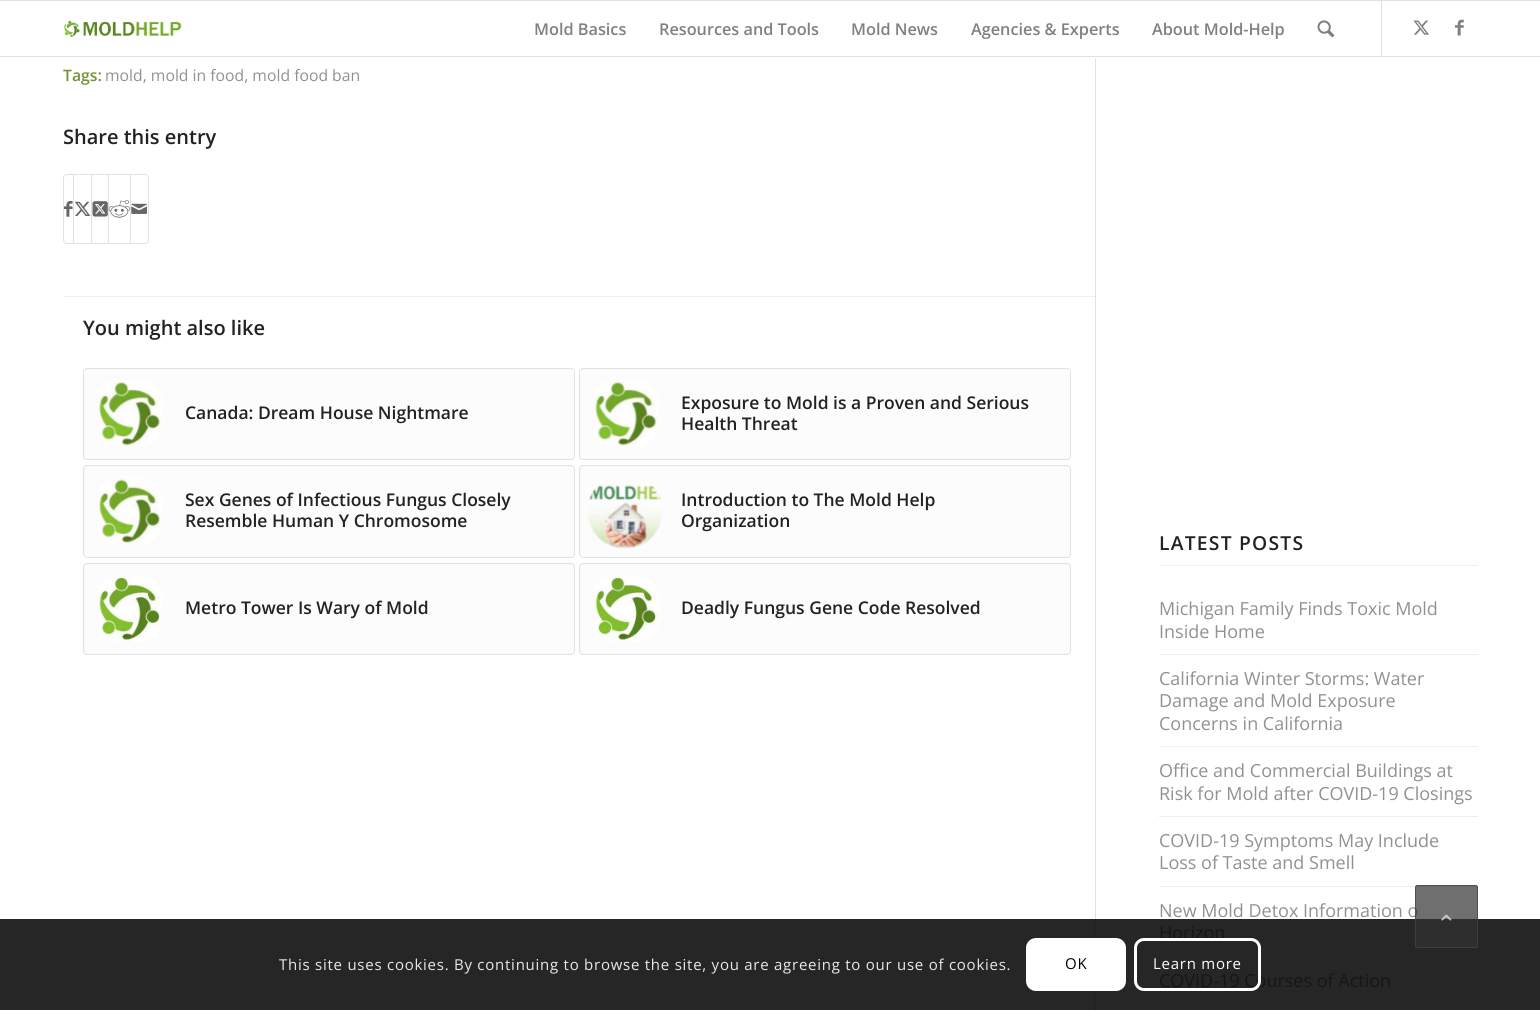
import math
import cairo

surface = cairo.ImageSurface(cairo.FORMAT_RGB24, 1540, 1010)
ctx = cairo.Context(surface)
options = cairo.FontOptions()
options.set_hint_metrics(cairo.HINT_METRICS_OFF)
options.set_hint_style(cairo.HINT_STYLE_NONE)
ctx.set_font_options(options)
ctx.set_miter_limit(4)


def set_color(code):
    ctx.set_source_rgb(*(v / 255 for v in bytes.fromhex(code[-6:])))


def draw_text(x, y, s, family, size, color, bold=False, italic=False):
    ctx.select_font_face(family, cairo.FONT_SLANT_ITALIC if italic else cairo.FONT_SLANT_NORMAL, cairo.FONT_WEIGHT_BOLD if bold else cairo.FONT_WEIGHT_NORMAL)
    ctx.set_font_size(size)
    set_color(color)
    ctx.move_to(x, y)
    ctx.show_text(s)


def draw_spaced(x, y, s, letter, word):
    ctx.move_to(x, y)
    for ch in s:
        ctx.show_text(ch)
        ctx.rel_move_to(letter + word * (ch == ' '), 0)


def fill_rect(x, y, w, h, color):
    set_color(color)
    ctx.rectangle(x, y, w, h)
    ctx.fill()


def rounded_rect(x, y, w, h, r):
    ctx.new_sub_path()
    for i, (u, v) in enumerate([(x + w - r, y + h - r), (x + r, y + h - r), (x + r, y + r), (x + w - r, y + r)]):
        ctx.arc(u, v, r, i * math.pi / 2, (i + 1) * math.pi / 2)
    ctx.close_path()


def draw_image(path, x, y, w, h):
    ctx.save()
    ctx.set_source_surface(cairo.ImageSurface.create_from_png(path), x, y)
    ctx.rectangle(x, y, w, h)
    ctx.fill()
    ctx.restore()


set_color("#ffffff")
ctx.paint()
fill_rect(0, 919, 1540, 91, "#262626")
fill_rect(0, 0, 1540, 1, "#e1e1e1")
fill_rect(0, 56, 1540, 1, "#e1e1e1")
draw_image("assets/img1.png", 64, 20, 118, 17)
fill_rect(1381, 1, 1, 55, "#e1e1e1")
draw_text(534, 35, "Mold Basics", "Open Sans SemiBold", 16.25, "#808080")
draw_text(659, 35, "Resources and Tools", "Open Sans SemiBold", 16.25, "#808080")
draw_text(851, 35, "Mold News", "Open Sans SemiBold", 16.25, "#808080")
draw_text(971, 35, "Agencies & Experts", "Open Sans SemiBold", 16.25, "#808080")
draw_text(1152, 35, "About Mold-Help", "Open Sans SemiBold", 16.25, "#808080")
draw_image("assets/img2.png", 1317, 20, 18, 18)
draw_image("assets/img3.png", 1413, 20, 16, 15)
draw_image("assets/img4.png", 1455, 19, 9, 17)
fill_rect(63, 296, 1032, 1, "#f0f0f0")
ctx.save()
ctx.rectangle(63, 0, 1032, 256)
ctx.clip()
draw_text(63, 81, "Tags:", "Open Sans SemiBold", 15.75, "#719430")
ctx.restore()
draw_text(105, 81, "mold, mold in food, mold food ban", "Open Sans", 15.75, "#919191")
draw_text(63, 144, "Share this entry", "Open Sans SemiBold", 20, "#222222")
rounded_rect(63.5, 174.5, 85, 69, 3.5)
set_color("#e1e1e1")
ctx.set_line_width(1)
ctx.stroke()
draw_image("assets/img5.png", 64, 201, 9, 16)
fill_rect(73, 175, 1, 68, "#e1e1e1")
draw_image("assets/img6.png", 74, 201, 17, 15)
fill_rect(91, 175, 1, 68, "#e1e1e1")
draw_image("assets/img7.png", 92, 201, 16, 16)
fill_rect(108, 175, 1, 68, "#e1e1e1")
draw_image("assets/img8.png", 108, 200, 22, 18)
fill_rect(130, 175, 1, 68, "#e1e1e1")
draw_image("assets/img9.png", 131, 203, 16, 11)
draw_text(83, 335, "You might also like", "Open Sans SemiBold", 20, "#222222")
set_color("#fcfcfc")
rounded_rect(83.5, 368.5, 491, 91, 3.5)
ctx.fill_preserve()
set_color("#e1e1e1")
ctx.stroke()
draw_image("assets/img10.png", 98, 380, 65, 67)
draw_text(185, 419, "Canada: Dream House Nightmare", "Open Sans SemiBold", 17.5, "#222222")
set_color("#fcfcfc")
rounded_rect(579.5, 368.5, 491, 91, 3.5)
ctx.fill_preserve()
set_color("#e1e1e1")
ctx.stroke()
draw_image("assets/img11.png", 594, 380, 65, 67)
draw_text(681, 409, "Exposure to Mold is a Proven and Serious", "Open Sans SemiBold", 17.5, "#222222")
draw_text(681, 430, "Health Threat", "Open Sans SemiBold", 17.5, "#222222")
set_color("#fcfcfc")
rounded_rect(83.5, 465.5, 491, 92, 3.5)
ctx.fill_preserve()
set_color("#e1e1e1")
ctx.stroke()
draw_image("assets/img12.png", 98, 477, 65, 68)
draw_text(185, 506, "Sex Genes of Infectious Fungus Closely", "Open Sans SemiBold", 17.5, "#222222")
draw_text(185, 527, "Resemble Human Y Chromosome", "Open Sans SemiBold", 17.5, "#222222")
set_color("#fcfcfc")
rounded_rect(579.5, 465.5, 491, 92, 3.5)
ctx.fill_preserve()
set_color("#e1e1e1")
ctx.stroke()
draw_image("assets/img13.png", 588, 482, 74, 67)
draw_text(681, 506, "Introduction to The Mold Help", "Open Sans SemiBold", 17.5, "#222222")
draw_text(681, 527, "Organization", "Open Sans SemiBold", 17.5, "#222222")
set_color("#fcfcfc")
rounded_rect(83.5, 563.5, 491, 91, 3.5)
ctx.fill_preserve()
set_color("#e1e1e1")
ctx.stroke()
draw_image("assets/img14.png", 98, 575, 65, 67)
draw_text(185, 614, "Metro Tower Is Wary of Mold", "Open Sans SemiBold", 17.5, "#222222")
set_color("#fcfcfc")
rounded_rect(579.5, 563.5, 491, 91, 3.5)
ctx.fill_preserve()
set_color("#e1e1e1")
ctx.stroke()
draw_image("assets/img15.png", 594, 575, 67, 67)
draw_text(681, 614, "Deadly Fungus Gene Code Resolved", "Open Sans SemiBold", 17.5, "#222222")
fill_rect(1095, 58, 1, 861, "#e1e1e1")
fill_rect(1095, 919, 1, 91, "#222222")
fill_rect(1159, 565, 319, 1, "#eeeeee")
ctx.set_font_size(19.25)
set_color("#222222")
draw_spaced(1159, 550, "LATEST POSTS", 1.25, 0)
fill_rect(1159, 654, 319, 1, "#eeeeee")
draw_text(1159, 615, "Michigan Family Finds Toxic Mold", "Open Sans", 18, "#919191")
draw_text(1159, 638, "Inside Home", "Open Sans", 18, "#919191")
fill_rect(1159, 746, 319, 1, "#eeeeee")
draw_text(1159, 685, "California Winter Storms: Water", "Open Sans", 18, "#919191")
draw_text(1159, 707, "Damage and Mold Exposure", "Open Sans", 18, "#919191")
draw_text(1159, 730, "Concerns in California", "Open Sans", 18, "#919191")
fill_rect(1159, 816, 319, 1, "#eeeeee")
draw_text(1159, 777, "Office and Commercial Buildings at", "Open Sans", 18, "#919191")
draw_text(1159, 800, "Risk for Mold after COVID-19 Closings", "Open Sans", 18, "#919191")
fill_rect(1159, 886, 319, 1, "#eeeeee")
draw_text(1159, 847, "COVID-19 Symptoms May Include", "Open Sans", 18, "#919191")
draw_text(1159, 869, "Loss of Taste and Smell", "Open Sans", 18, "#919191")
draw_text(1159, 917, "New Mold Detox Information o", "Open Sans", 18, "#919191")
draw_text(1159, 939, "Horizon", "Open Sans", 18, "#161616")
draw_text(1159, 987, "COVID-19 Courses of Action", "Open Sans", 18, "#161616")
ctx.set_source_rgba(0.2, 0.2, 0.2, 0.7)
rounded_rect(1415, 885, 63, 63, 2.5)
ctx.fill()
rounded_rect(1415.5, 885.5, 62, 62, 2)
ctx.set_source_rgba(0.267, 0.267, 0.267, 0.7)
ctx.stroke()
draw_image("assets/img16.png", 1441, 914, 11, 7)
ctx.set_font_size(15)
set_color("#e9e9e9")
draw_spaced(279, 970, "This site uses cookies. By continuing to browse the site, you are agreeing to our use of cookies.", 0.75, 0)
set_color("#ffffff")
rounded_rect(1026, 938, 100, 53, 10)
ctx.fill()
set_color("#000000")
draw_spaced(1065, 969, "OK", 0.75, 0)
rounded_rect(1135.5, 939.5, 124, 50, 8.5)
set_color("#ffffff")
ctx.set_line_width(3)
ctx.stroke()
draw_spaced(1153, 969, "Learn more", 0.75, 0)
surface.write_to_png("output.png")
